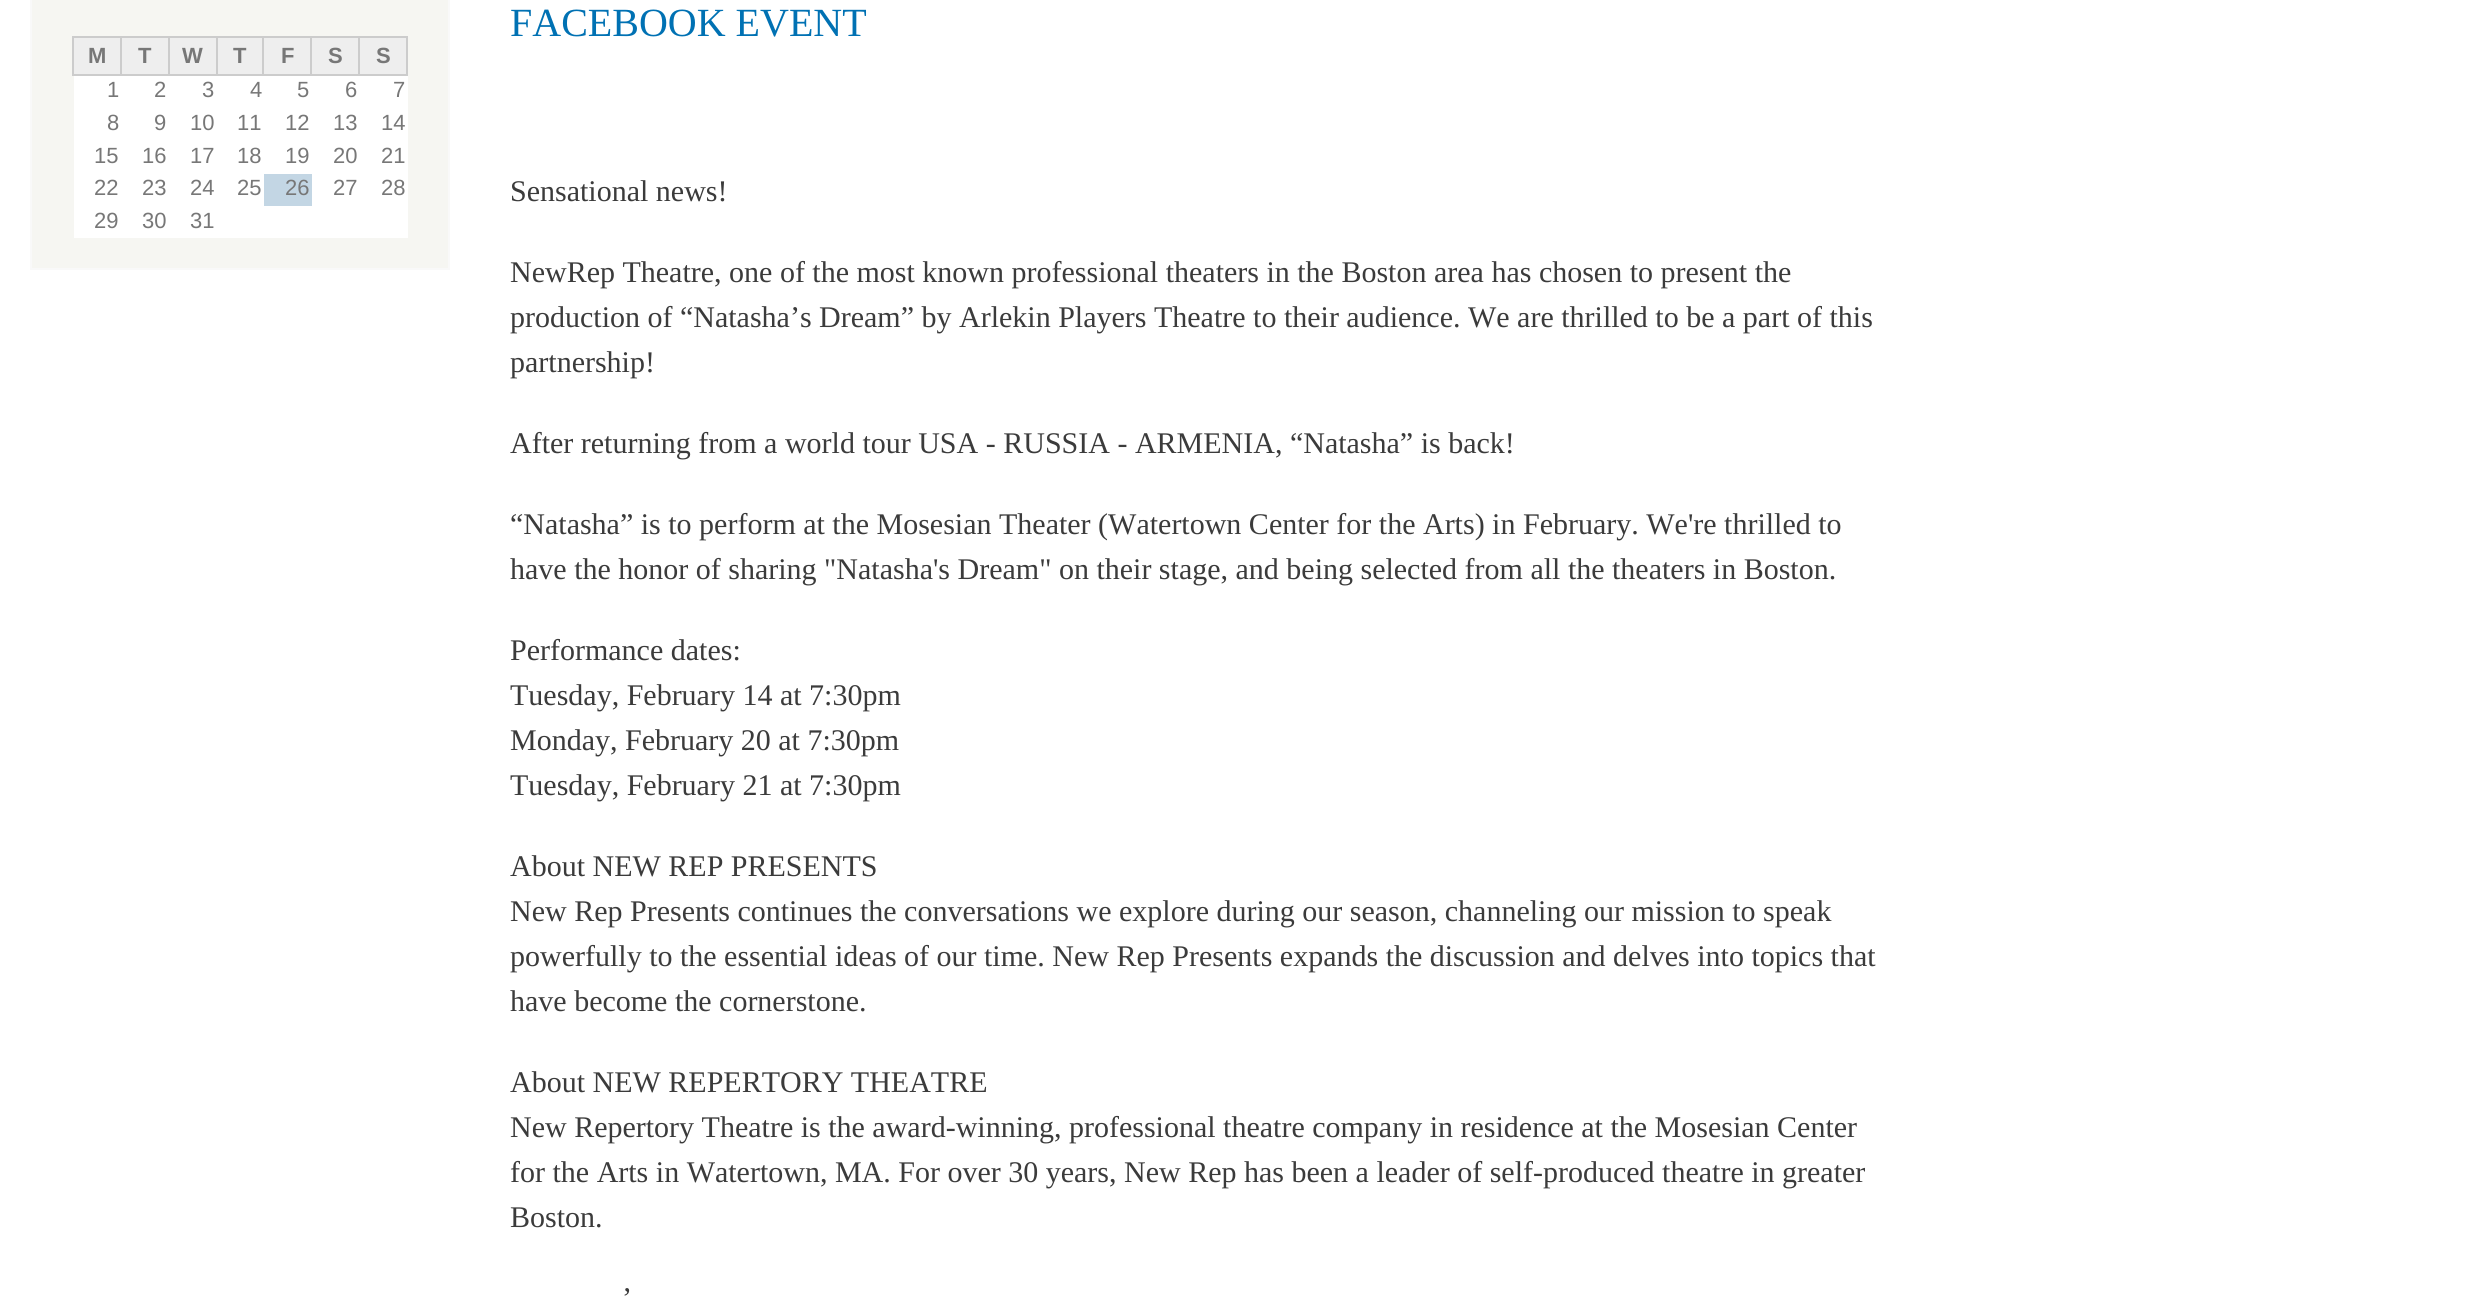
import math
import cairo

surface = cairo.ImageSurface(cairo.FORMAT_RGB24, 2482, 1298)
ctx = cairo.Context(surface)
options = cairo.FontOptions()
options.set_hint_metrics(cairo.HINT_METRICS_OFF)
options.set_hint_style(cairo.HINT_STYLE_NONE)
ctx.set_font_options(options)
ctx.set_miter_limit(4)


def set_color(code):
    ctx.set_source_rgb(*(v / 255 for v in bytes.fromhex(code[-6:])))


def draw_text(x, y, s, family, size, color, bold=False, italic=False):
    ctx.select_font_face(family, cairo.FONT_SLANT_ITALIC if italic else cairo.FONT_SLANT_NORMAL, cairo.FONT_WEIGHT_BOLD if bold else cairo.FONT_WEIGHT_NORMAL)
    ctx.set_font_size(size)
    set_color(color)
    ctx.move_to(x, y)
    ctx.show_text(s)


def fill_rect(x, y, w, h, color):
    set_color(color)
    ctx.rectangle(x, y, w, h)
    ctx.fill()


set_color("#ffffff")
ctx.paint()
set_color("#f6f6f2")
ctx.rectangle(31, -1, 418, 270)
ctx.fill_preserve()
set_color("#f9f9f9")
ctx.stroke()
fill_rect(74, 38, 46, 36, "#eeeeee")
fill_rect(358, 36, 50, 2, "#cccccc")
fill_rect(406, 36, 2, 40, "#cccccc")
fill_rect(358, 74, 50, 2, "#cccccc")
fill_rect(358, 36, 2, 40, "#cccccc")
fill_rect(310, 36, 50, 2, "#cccccc")
fill_rect(310, 74, 50, 2, "#cccccc")
fill_rect(310, 36, 2, 40, "#cccccc")
fill_rect(262, 36, 50, 2, "#cccccc")
fill_rect(262, 74, 50, 2, "#cccccc")
fill_rect(262, 36, 2, 40, "#cccccc")
fill_rect(216, 36, 48, 2, "#cccccc")
fill_rect(216, 74, 48, 2, "#cccccc")
fill_rect(216, 36, 2, 40, "#cccccc")
fill_rect(168, 36, 50, 2, "#cccccc")
fill_rect(168, 74, 50, 2, "#cccccc")
fill_rect(168, 36, 2, 40, "#cccccc")
fill_rect(120, 36, 50, 2, "#cccccc")
fill_rect(120, 74, 50, 2, "#cccccc")
fill_rect(120, 36, 2, 40, "#cccccc")
fill_rect(72, 36, 50, 2, "#cccccc")
fill_rect(72, 74, 50, 2, "#cccccc")
fill_rect(72, 36, 2, 40, "#cccccc")
draw_text(88, 63, "M", "Liberation Sans", 22, "#777777", bold=True)
fill_rect(122, 38, 46, 36, "#eeeeee")
draw_text(138, 63, "T", "Liberation Sans", 22, "#777777", bold=True)
fill_rect(170, 38, 46, 36, "#eeeeee")
draw_text(182, 63, "W", "Liberation Sans", 22, "#777777", bold=True)
fill_rect(218, 38, 44, 36, "#eeeeee")
draw_text(233, 63, "T", "Liberation Sans", 22, "#777777", bold=True)
fill_rect(264, 38, 46, 36, "#eeeeee")
draw_text(281, 63, "F", "Liberation Sans", 22, "#777777", bold=True)
fill_rect(312, 38, 46, 36, "#eeeeee")
draw_text(328, 63, "S", "Liberation Sans", 22, "#777777", bold=True)
fill_rect(360, 38, 46, 36, "#eeeeee")
draw_text(376, 63, "S", "Liberation Sans", 22, "#777777", bold=True)
fill_rect(74, 76, 334, 162, "#ffffff")
draw_text(107, 97, "1", "Liberation Sans", 22, "#777777")
draw_text(154, 97, "2", "Liberation Sans", 22, "#777777")
draw_text(202, 97, "3", "Liberation Sans", 22, "#777777")
draw_text(250, 97, "4", "Liberation Sans", 22, "#777777")
draw_text(297, 97, "5", "Liberation Sans", 22, "#777777")
draw_text(345, 97, "6", "Liberation Sans", 22, "#777777")
draw_text(393, 97, "7", "Liberation Sans", 22, "#777777")
draw_text(107, 130, "8", "Liberation Sans", 22, "#777777")
draw_text(154, 130, "9", "Liberation Sans", 22, "#777777")
draw_text(190, 130, "10", "Liberation Sans", 22, "#777777")
draw_text(237, 130, "11", "Liberation Sans", 22, "#777777")
draw_text(285, 130, "12", "Liberation Sans", 22, "#777777")
draw_text(333, 130, "13", "Liberation Sans", 22, "#777777")
draw_text(381, 130, "14", "Liberation Sans", 22, "#777777")
draw_text(94, 163, "15", "Liberation Sans", 22, "#777777")
draw_text(142, 163, "16", "Liberation Sans", 22, "#777777")
draw_text(190, 163, "17", "Liberation Sans", 22, "#777777")
draw_text(237, 163, "18", "Liberation Sans", 22, "#777777")
draw_text(285, 163, "19", "Liberation Sans", 22, "#777777")
draw_text(333, 163, "20", "Liberation Sans", 22, "#777777")
draw_text(381, 163, "21", "Liberation Sans", 22, "#777777")
draw_text(94, 195, "22", "Liberation Sans", 22, "#777777")
draw_text(142, 195, "23", "Liberation Sans", 22, "#777777")
draw_text(190, 195, "24", "Liberation Sans", 22, "#777777")
draw_text(237, 195, "25", "Liberation Sans", 22, "#777777")
fill_rect(264, 174, 48, 32, "#c3d6e4")
draw_text(285, 195, "26", "Liberation Sans", 22, "#777777")
draw_text(333, 195, "27", "Liberation Sans", 22, "#777777")
draw_text(381, 195, "28", "Liberation Sans", 22, "#777777")
draw_text(94, 228, "29", "Liberation Sans", 22, "#777777")
draw_text(142, 228, "30", "Liberation Sans", 22, "#777777")
draw_text(190, 228, "31", "Liberation Sans", 22, "#777777")
draw_text(510, 36, "FACEBOOK EVENT", "Liberation Serif", 40, "#0071b3")
draw_text(510, 201, "Sensational news!", "Liberation Serif", 30, "#3b3b3b")
draw_text(510, 282, "NewRep Theatre, one of the most known professional theaters in the Boston area has chosen to present the", "Liberation Serif", 30, "#3b3b3b")
draw_text(510, 327, "production of “Natasha’s Dream” by Arlekin Players Theatre to their audience. We are thrilled to be a part of this", "Liberation Serif", 30, "#3b3b3b")
draw_text(510, 372, "partnership!", "Liberation Serif", 30, "#3b3b3b")
draw_text(510, 453, "After returning from a world tour USA - RUSSIA - ARMENIA, “Natasha” is back!", "Liberation Serif", 30, "#3b3b3b")
draw_text(510, 534, "“Natasha” is to perform at the Mosesian Theater (Watertown Center for the Arts) in February. We're thrilled to", "Liberation Serif", 30, "#3b3b3b")
draw_text(510, 579, "have the honor of sharing \"Natasha's Dream\" on their stage, and being selected from all the theaters in Boston.", "Liberation Serif", 30, "#3b3b3b")
draw_text(510, 660, "Performance dates:", "Liberation Serif", 30, "#3b3b3b")
draw_text(510, 705, "Tuesday, February 14 at 7:30pm", "Liberation Serif", 30, "#3b3b3b")
draw_text(510, 750, "Monday, February 20 at 7:30pm", "Liberation Serif", 30, "#3b3b3b")
draw_text(510, 795, "Tuesday, February 21 at 7:30pm", "Liberation Serif", 30, "#3b3b3b")
draw_text(510, 876, "About NEW REP PRESENTS", "Liberation Serif", 30, "#3b3b3b")
draw_text(510, 921, "New Rep Presents continues the conversations we explore during our season, channeling our mission to speak", "Liberation Serif", 30, "#3b3b3b")
draw_text(510, 966, "powerfully to the essential ideas of our time. New Rep Presents expands the discussion and delves into topics that", "Liberation Serif", 30, "#3b3b3b")
draw_text(510, 1011, "have become the cornerstone.", "Liberation Serif", 30, "#3b3b3b")
draw_text(510, 1092, "About NEW REPERTORY THEATRE", "Liberation Serif", 30, "#3b3b3b")
draw_text(510, 1137, "New Repertory Theatre is the award-winning, professional theatre company in residence at the Mosesian Center", "Liberation Serif", 30, "#3b3b3b")
draw_text(510, 1182, "for the Arts in Watertown, MA. For over 30 years, New Rep has been a leader of self-produced theatre in greater", "Liberation Serif", 30, "#3b3b3b")
draw_text(510, 1227, "Boston.", "Liberation Serif", 30, "#3b3b3b")
draw_text(622, 1308, "’", "Liberation Serif", 30, "#3b3b3b")
surface.write_to_png("output.png")
